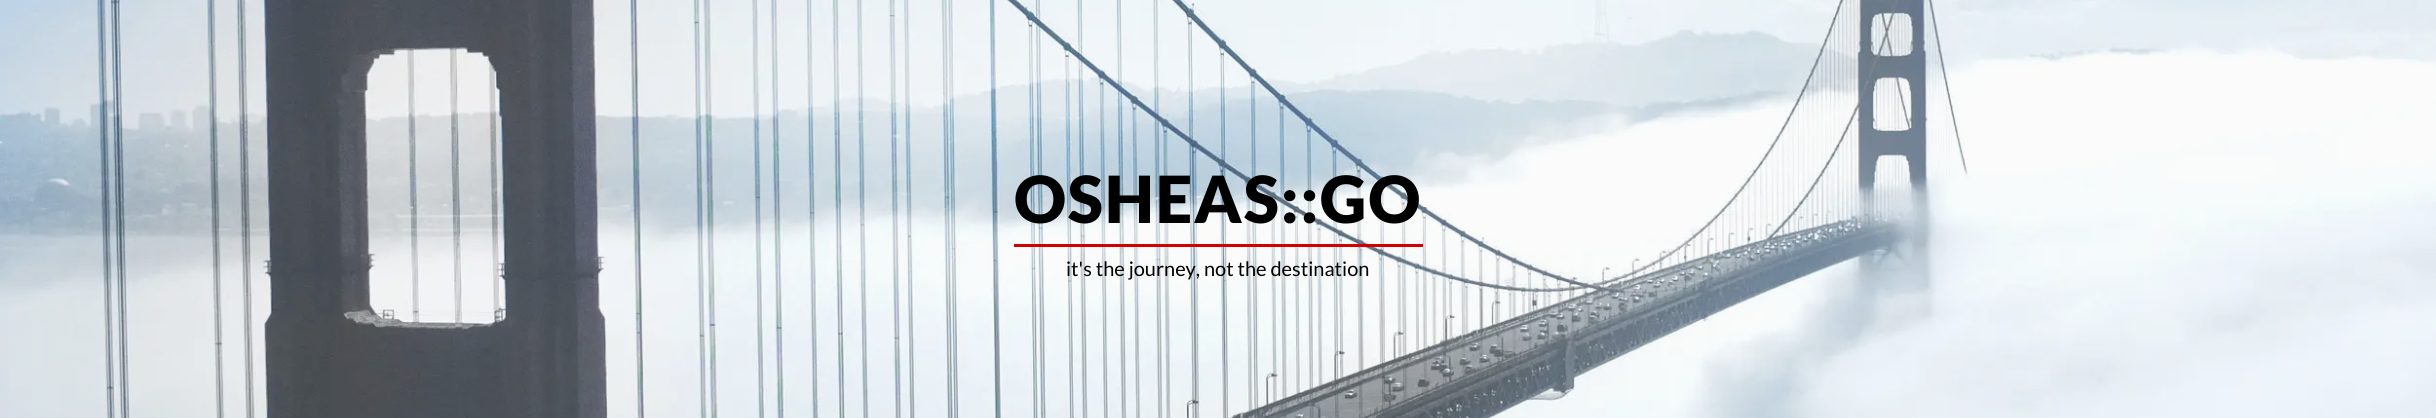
import math
import cairo

surface = cairo.ImageSurface(cairo.FORMAT_RGB24, 2436, 418)
ctx = cairo.Context(surface)
options = cairo.FontOptions()
options.set_hint_metrics(cairo.HINT_METRICS_OFF)
options.set_hint_style(cairo.HINT_STYLE_NONE)
ctx.set_font_options(options)
ctx.set_miter_limit(4)


def set_color(code):
    ctx.set_source_rgb(*(v / 255 for v in bytes.fromhex(code[-6:])))


def draw_text(x, y, s, family, size, color, bold=False, italic=False):
    ctx.select_font_face(family, cairo.FONT_SLANT_ITALIC if italic else cairo.FONT_SLANT_NORMAL, cairo.FONT_WEIGHT_BOLD if bold else cairo.FONT_WEIGHT_NORMAL)
    ctx.set_font_size(size)
    set_color(color)
    ctx.move_to(x, y)
    ctx.show_text(s)


def draw_spaced(x, y, s, letter, word):
    ctx.move_to(x, y)
    for ch in s:
        ctx.show_text(ch)
        ctx.rel_move_to(letter + word * (ch == ' '), 0)


def fill_rect(x, y, w, h, color):
    set_color(color)
    ctx.rectangle(x, y, w, h)
    ctx.fill()


def draw_image(path, x, y, w, h):
    ctx.save()
    ctx.set_source_surface(cairo.ImageSurface.create_from_png(path), x, y)
    ctx.rectangle(x, y, w, h)
    ctx.fill()
    ctx.restore()


set_color("#ffffff")
ctx.paint()
draw_image("assets/img1.png", 0, 0, 2436, 418)
fill_rect(1014, 244, 409, 3, "#d20000")
ctx.select_font_face("Lato Black")
ctx.set_font_size(65)
set_color("#000000")
draw_spaced(1014, 223, "OSHEAS::GO", 1.75, 0)
draw_text(1066, 276, "it's the journey, not the destination", "Lato", 20, "#000000")
surface.write_to_png("output.png")
